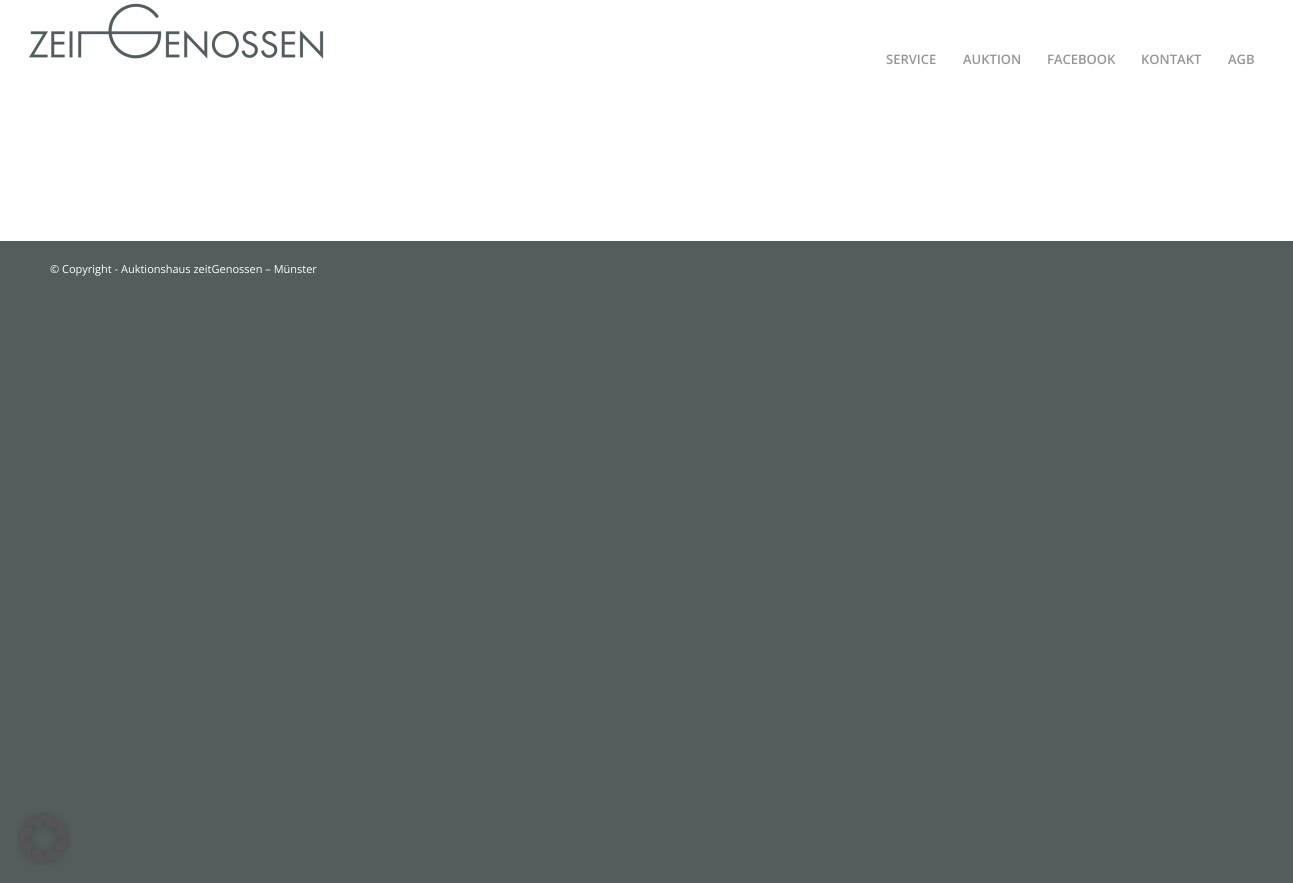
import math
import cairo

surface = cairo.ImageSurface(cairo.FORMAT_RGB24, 1293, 883)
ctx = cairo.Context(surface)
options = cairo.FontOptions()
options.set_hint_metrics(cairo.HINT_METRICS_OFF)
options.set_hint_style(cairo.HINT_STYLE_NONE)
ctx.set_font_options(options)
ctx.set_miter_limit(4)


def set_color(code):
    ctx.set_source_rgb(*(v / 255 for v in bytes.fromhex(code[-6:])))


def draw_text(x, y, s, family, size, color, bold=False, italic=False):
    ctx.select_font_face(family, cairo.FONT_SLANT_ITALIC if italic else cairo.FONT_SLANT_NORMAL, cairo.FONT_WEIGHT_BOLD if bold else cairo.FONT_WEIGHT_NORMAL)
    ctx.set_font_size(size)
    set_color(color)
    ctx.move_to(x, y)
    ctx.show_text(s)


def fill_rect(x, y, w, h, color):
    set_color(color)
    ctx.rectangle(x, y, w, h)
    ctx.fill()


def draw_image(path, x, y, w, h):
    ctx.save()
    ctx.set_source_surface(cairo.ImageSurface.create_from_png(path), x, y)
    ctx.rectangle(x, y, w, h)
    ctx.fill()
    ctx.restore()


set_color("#545c5e")
ctx.paint()
fill_rect(0, 0, 1293, 241, "#ffffff")
draw_image("assets/img1.png", 29, 3, 295, 56)
draw_text(886, 64, "SERVICE", "Open Sans SemiBold", 13, "#969696")
draw_text(963, 64, "AUKTION", "Open Sans SemiBold", 13, "#969696")
draw_text(1047, 64, "FACEBOOK", "Open Sans SemiBold", 13, "#969696")
draw_text(1141, 64, "KONTAKT", "Open Sans SemiBold", 13, "#969696")
draw_text(1228, 64, "AGB", "Open Sans SemiBold", 13, "#969696")
draw_text(50, 273, "© Copyright - Auktionshaus zeitGenossen – Münster", "Open Sans", 11, "#ffffff")
draw_image("assets/img2.png", 17, 812, 53, 53)
surface.write_to_png("output.png")
